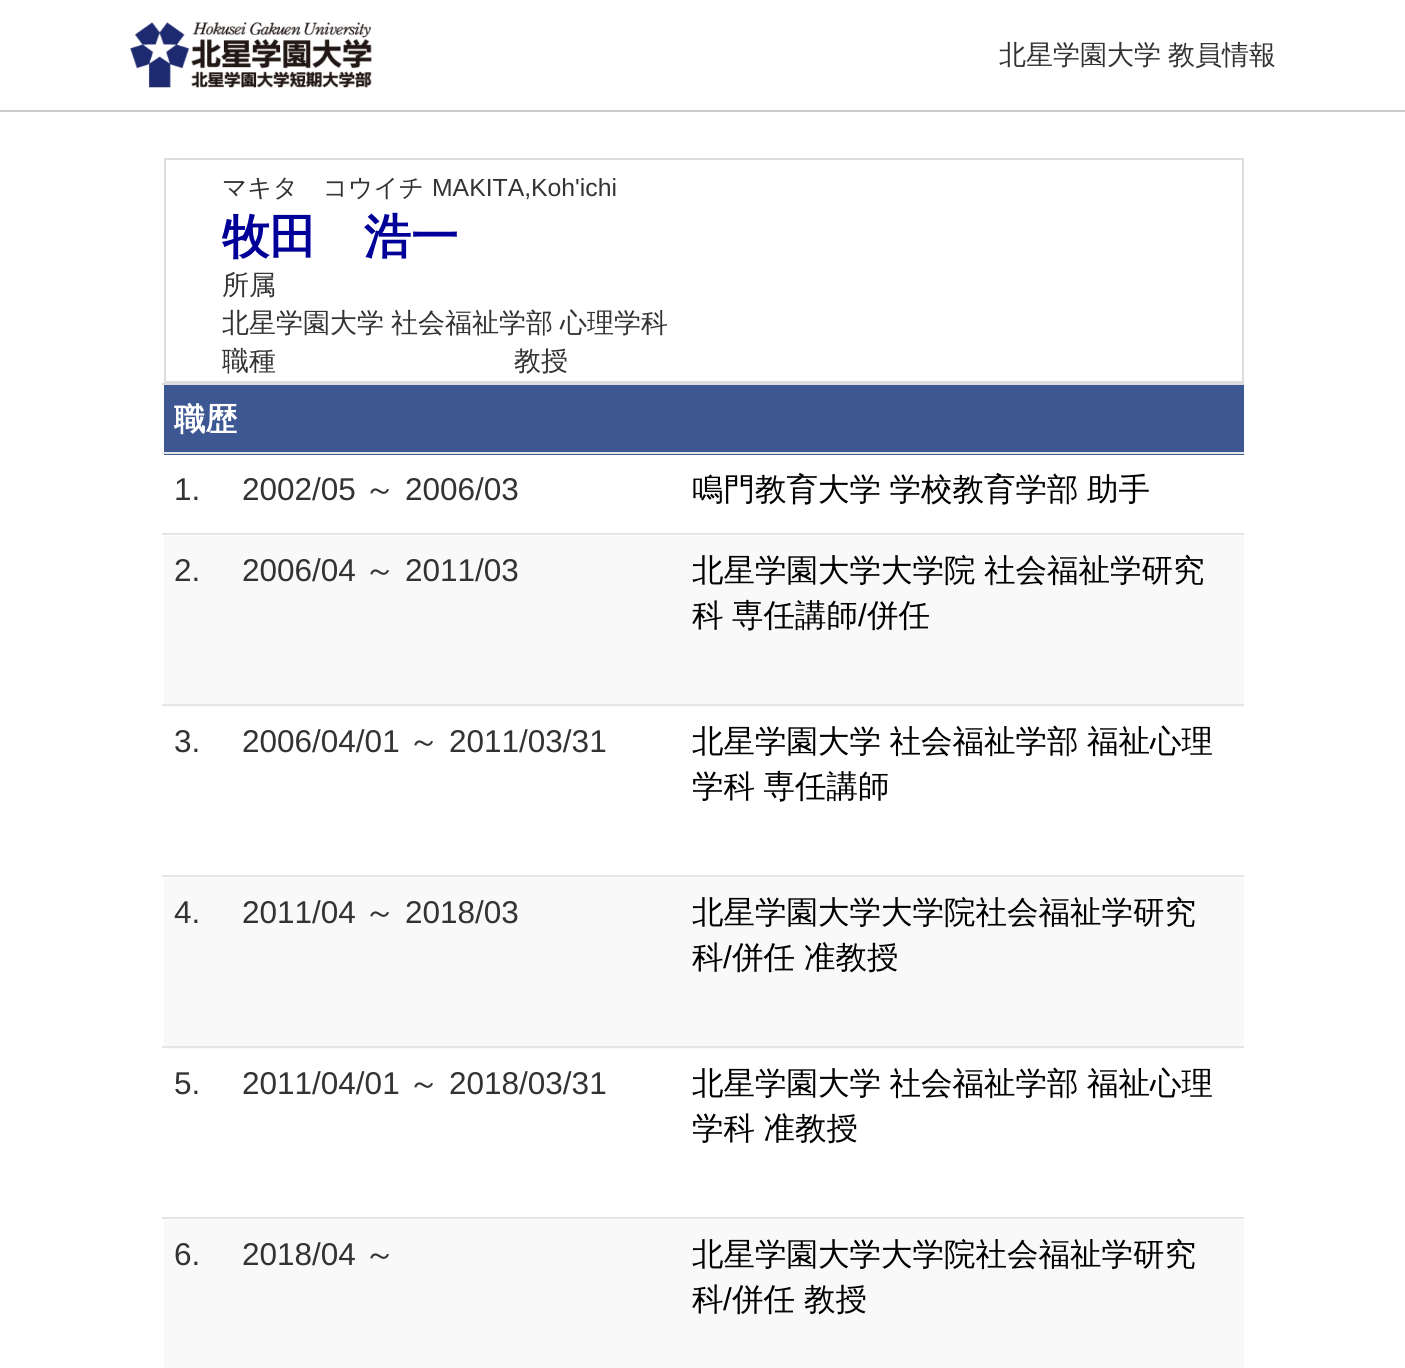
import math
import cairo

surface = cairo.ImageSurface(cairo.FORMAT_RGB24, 1405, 1368)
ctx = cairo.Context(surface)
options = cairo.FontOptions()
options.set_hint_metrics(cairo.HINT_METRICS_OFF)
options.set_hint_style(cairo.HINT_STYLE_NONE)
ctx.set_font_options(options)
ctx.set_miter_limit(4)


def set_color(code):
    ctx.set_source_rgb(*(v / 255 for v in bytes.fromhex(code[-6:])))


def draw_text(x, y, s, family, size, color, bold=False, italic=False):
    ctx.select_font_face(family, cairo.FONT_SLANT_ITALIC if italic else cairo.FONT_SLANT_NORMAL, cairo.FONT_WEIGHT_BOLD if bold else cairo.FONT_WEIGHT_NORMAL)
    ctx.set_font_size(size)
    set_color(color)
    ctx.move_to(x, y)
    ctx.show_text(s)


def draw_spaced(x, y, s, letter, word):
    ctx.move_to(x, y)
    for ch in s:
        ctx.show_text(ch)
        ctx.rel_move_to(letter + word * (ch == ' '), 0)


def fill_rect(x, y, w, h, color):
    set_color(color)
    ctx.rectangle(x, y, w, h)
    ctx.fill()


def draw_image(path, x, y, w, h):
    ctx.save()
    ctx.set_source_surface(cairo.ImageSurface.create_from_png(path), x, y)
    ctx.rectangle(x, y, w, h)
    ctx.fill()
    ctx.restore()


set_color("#ffffff")
ctx.paint()
fill_rect(0, 110, 1405, 2, "#cccccc")
draw_image("assets/img1.png", 130, 22, 242, 66)
ctx.select_font_face("WenQuanYi Zen Hei Medium")
ctx.set_font_size(27)
set_color("#333333")
draw_spaced(999, 64, "北星学園大学 教員情報", 0, -1)
ctx.rectangle(165, 159, 1078, 223)
set_color("#dddddd")
ctx.stroke()
draw_text(222, 196, "マキタ　コウイチ", "WenQuanYi Zen Hei Medium", 24.75, "#333333")
draw_text(432, 196, "MAKITA,Koh'ichi", "Liberation Sans", 24.75, "#333333")
draw_text(222, 253, "牧田　浩一", "WenQuanYi Zen Hei", 47.25, "#000099", bold=True)
draw_text(222, 294, "所属", "WenQuanYi Zen Hei Medium", 27, "#333333")
draw_text(222, 332, "北星学園大学", "WenQuanYi Zen Hei Medium", 27, "#333333")
draw_spaced(391, 332, "社会福祉学部 心理学科", 0, -1)
draw_text(222, 370, "職種", "WenQuanYi Zen Hei Medium", 27, "#333333")
draw_text(514, 370, "教授", "WenQuanYi Zen Hei Medium", 27, "#333333")
fill_rect(164, 385, 1080, 70, "#3d5793")
fill_rect(162, 383, 1082, 2, "#dddddd")
fill_rect(162, 452, 1082, 2, "#e5e5e5")
draw_text(174, 430, "職歴", "WenQuanYi Zen Hei", 31.5, "#ffffff", bold=True)
draw_text(174, 500, "1.", "Liberation Sans", 31.5, "#333333")
draw_text(242, 500, "2002/05", "Liberation Sans", 31.5, "#333333")
draw_text(364, 500, "～", "WenQuanYi Zen Hei Medium", 31.5, "#333333")
draw_text(405, 500, "2006/03", "Liberation Sans", 31.5, "#333333")
fill_rect(162, 533, 1082, 2, "#e5e5e5")
ctx.select_font_face("WenQuanYi Zen Hei Medium")
set_color("#000000")
draw_spaced(692, 500, "鳴門教育大学 学校教育学部 助手", 0, -1)
fill_rect(164, 536, 1080, 171, "#f9f9f9")
draw_text(174, 581, "2.", "Liberation Sans", 31.5, "#333333")
draw_text(242, 581, "2006/04", "Liberation Sans", 31.5, "#333333")
draw_text(364, 581, "～", "WenQuanYi Zen Hei Medium", 31.5, "#333333")
draw_text(405, 581, "2011/03", "Liberation Sans", 31.5, "#333333")
fill_rect(162, 704, 1082, 2, "#e5e5e5")
ctx.select_font_face("WenQuanYi Zen Hei Medium")
set_color("#000000")
draw_spaced(692, 581, "北星学園大学大学院 社会福祉学研究", 0, -1)
draw_spaced(692, 626, "科 専任講師", 0, -1)
draw_text(858, 626, "/", "Liberation Sans", 31.5, "#000000")
draw_text(867, 626, "併任", "WenQuanYi Zen Hei Medium", 31.5, "#000000")
draw_text(174, 752, "3.", "Liberation Sans", 31.5, "#333333")
draw_text(242, 752, "2006/04/01", "Liberation Sans", 31.5, "#333333")
draw_text(408, 752, "～", "WenQuanYi Zen Hei Medium", 31.5, "#333333")
draw_text(449, 752, "2011/03/31", "Liberation Sans", 31.5, "#333333")
fill_rect(162, 875, 1082, 2, "#e5e5e5")
ctx.select_font_face("WenQuanYi Zen Hei Medium")
set_color("#000000")
draw_spaced(692, 752, "北星学園大学 社会福祉学部 福祉心理", 0, -1)
draw_spaced(692, 797, "学科 専任講師", 0, -1)
fill_rect(164, 878, 1080, 171, "#f9f9f9")
draw_text(174, 923, "4.", "Liberation Sans", 31.5, "#333333")
draw_text(242, 923, "2011/04", "Liberation Sans", 31.5, "#333333")
draw_text(364, 923, "～", "WenQuanYi Zen Hei Medium", 31.5, "#333333")
draw_text(405, 923, "2018/03", "Liberation Sans", 31.5, "#333333")
fill_rect(162, 1046, 1082, 2, "#e5e5e5")
draw_text(692, 923, "北星学園大学大学院社会福祉学研究", "WenQuanYi Zen Hei Medium", 31.5, "#000000")
draw_text(692, 968, "科", "WenQuanYi Zen Hei Medium", 31.5, "#000000")
draw_text(723, 968, "/", "Liberation Sans", 31.5, "#000000")
draw_text(732, 968, "併任", "WenQuanYi Zen Hei Medium", 31.5, "#000000")
draw_text(804, 968, "准教授", "WenQuanYi Zen Hei Medium", 31.5, "#000000")
draw_text(174, 1094, "5.", "Liberation Sans", 31.5, "#333333")
draw_text(242, 1094, "2011/04/01", "Liberation Sans", 31.5, "#333333")
draw_text(408, 1094, "～", "WenQuanYi Zen Hei Medium", 31.5, "#333333")
draw_text(449, 1094, "2018/03/31", "Liberation Sans", 31.5, "#333333")
fill_rect(162, 1217, 1082, 2, "#e5e5e5")
ctx.select_font_face("WenQuanYi Zen Hei Medium")
set_color("#000000")
draw_spaced(692, 1094, "北星学園大学 社会福祉学部 福祉心理", 0, -1)
draw_spaced(692, 1139, "学科 准教授", 0, -1)
fill_rect(164, 1220, 1080, 148, "#f9f9f9")
draw_text(174, 1265, "6.", "Liberation Sans", 31.5, "#333333")
draw_text(242, 1265, "2018/04", "Liberation Sans", 31.5, "#333333")
draw_text(364, 1265, "～", "WenQuanYi Zen Hei Medium", 31.5, "#333333")
draw_text(692, 1265, "北星学園大学大学院社会福祉学研究", "WenQuanYi Zen Hei Medium", 31.5, "#000000")
draw_text(692, 1310, "科", "WenQuanYi Zen Hei Medium", 31.5, "#000000")
draw_text(723, 1310, "/", "Liberation Sans", 31.5, "#000000")
draw_text(732, 1310, "併任", "WenQuanYi Zen Hei Medium", 31.5, "#000000")
draw_text(804, 1310, "教授", "WenQuanYi Zen Hei Medium", 31.5, "#000000")
surface.write_to_png("output.png")
